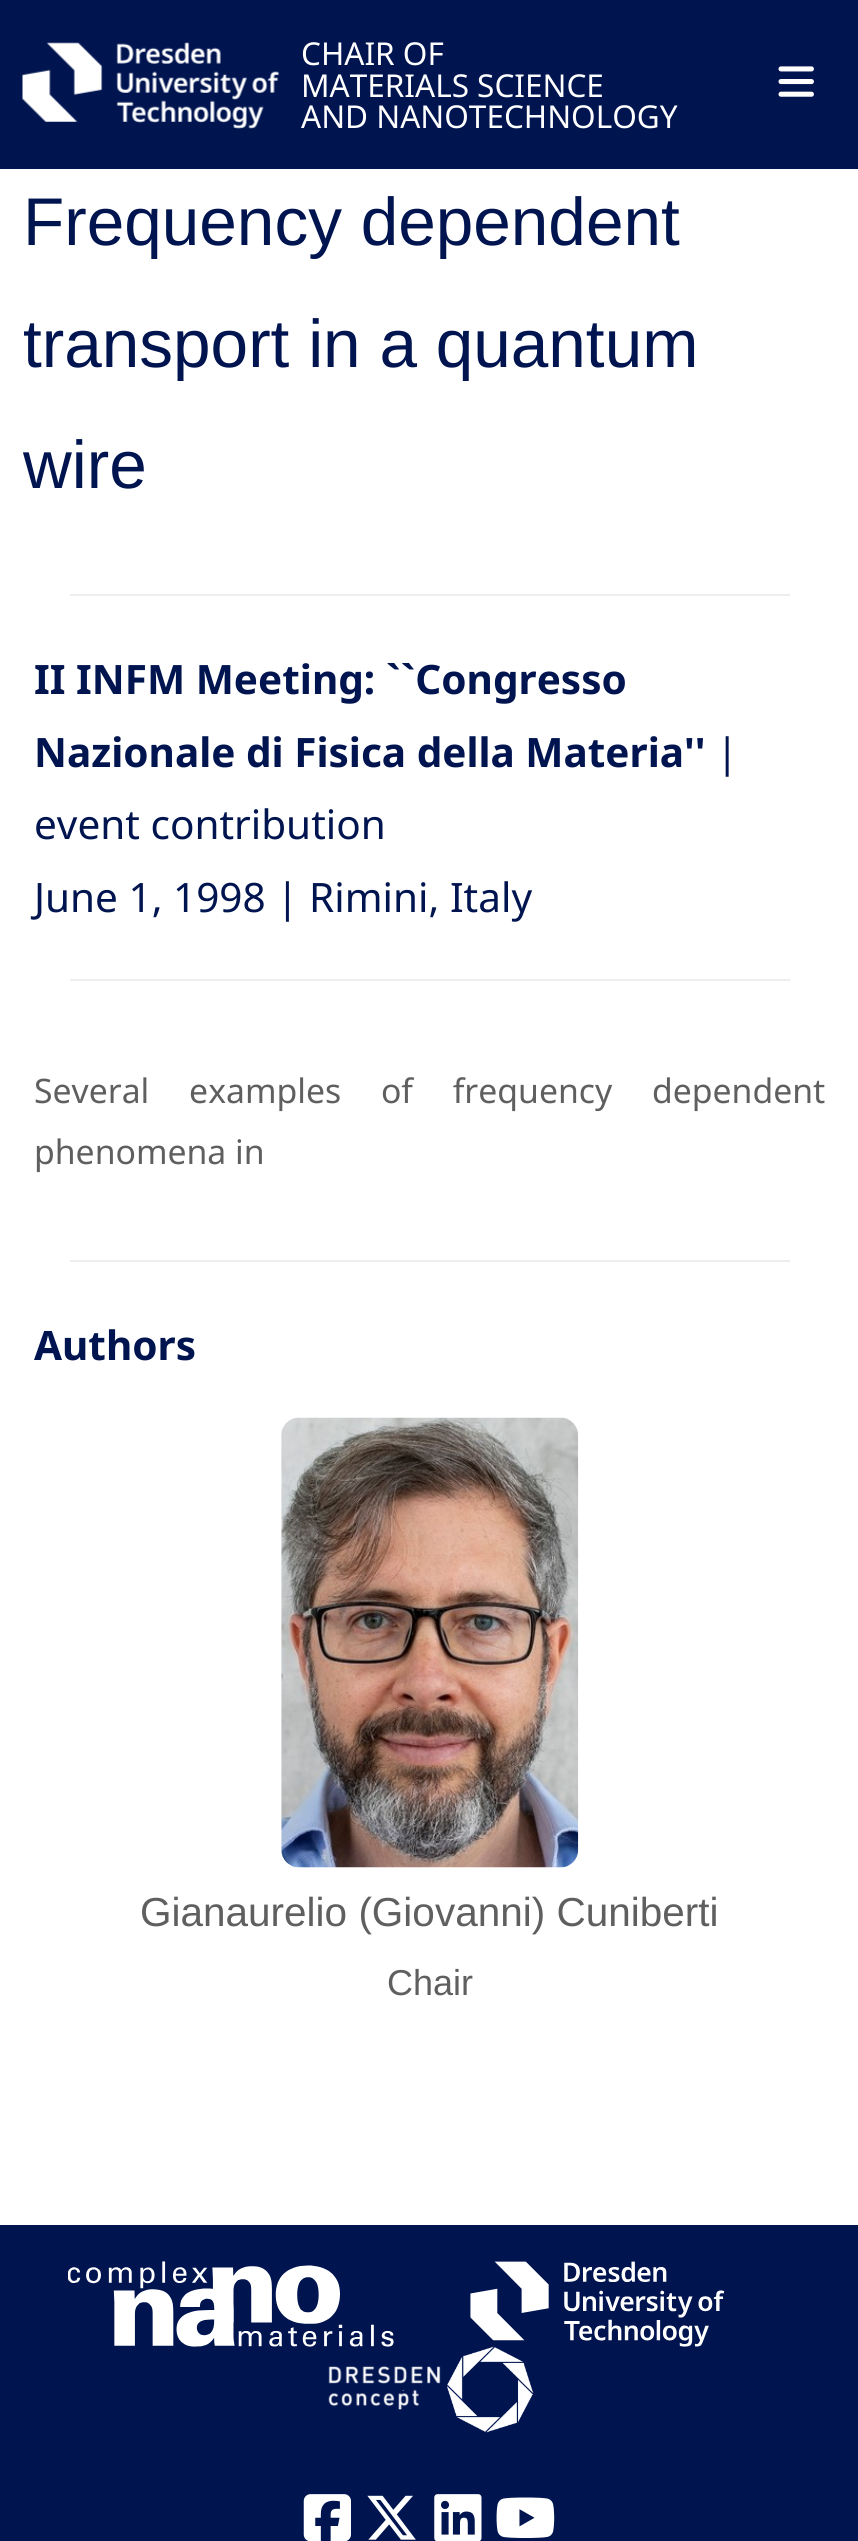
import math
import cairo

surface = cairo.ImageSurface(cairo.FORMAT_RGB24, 858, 2541)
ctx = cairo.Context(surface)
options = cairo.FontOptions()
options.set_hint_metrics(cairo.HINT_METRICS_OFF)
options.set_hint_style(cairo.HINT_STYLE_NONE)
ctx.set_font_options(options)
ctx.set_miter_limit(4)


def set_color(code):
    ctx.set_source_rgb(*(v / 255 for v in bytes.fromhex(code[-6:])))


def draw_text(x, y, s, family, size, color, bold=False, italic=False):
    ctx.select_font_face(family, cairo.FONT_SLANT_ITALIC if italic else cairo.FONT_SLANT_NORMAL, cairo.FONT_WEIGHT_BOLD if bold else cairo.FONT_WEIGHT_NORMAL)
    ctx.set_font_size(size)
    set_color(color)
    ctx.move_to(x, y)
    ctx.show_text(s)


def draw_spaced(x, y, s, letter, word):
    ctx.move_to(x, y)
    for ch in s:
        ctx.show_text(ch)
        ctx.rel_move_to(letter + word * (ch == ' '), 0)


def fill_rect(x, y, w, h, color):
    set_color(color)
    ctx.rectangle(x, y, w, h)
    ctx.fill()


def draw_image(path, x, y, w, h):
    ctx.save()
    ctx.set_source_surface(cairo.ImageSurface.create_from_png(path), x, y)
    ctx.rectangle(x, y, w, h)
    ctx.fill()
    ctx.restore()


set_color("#ffffff")
ctx.paint()
fill_rect(0, 0, 858, 169, "#001450")
draw_image("assets/img1.png", 22, 42, 258, 87)
draw_text(301, 65, "CHAIR OF", "Noto Sans", 31.5, "#ffffff")
draw_text(301, 97, "MATERIALS SCIENCE", "Noto Sans", 31.5, "#ffffff")
draw_text(301, 128, "AND NANOTECHNOLOGY", "Noto Sans", 31.5, "#ffffff")
draw_image("assets/img2.png", 778, 66, 36, 31)
draw_text(23, 245, "Frequency dependent", "Liberation Sans", 67.5, "#001450")
draw_text(23, 367, "transport in a quantum", "Liberation Sans", 67.5, "#001450")
draw_text(23, 488, "wire", "Liberation Sans", 67.5, "#001450")
fill_rect(70, 594, 720, 2, "#eeeeee")
draw_text(34, 694, "II INFM Meeting: ``Congresso", "Noto Sans", 40.5, "#001450", bold=True)
draw_text(34, 767, "Nazionale di Fisica della Materia''", "Noto Sans", 40.5, "#001450", bold=True)
draw_text(716, 767, "|", "Noto Sans", 40.5, "#001450")
draw_text(34, 839, "event contribution", "Noto Sans", 40.5, "#001450")
draw_text(34, 912, "June 1, 1998 | Rimini, Italy", "Noto Sans", 40.5, "#001450")
fill_rect(70, 979, 720, 2, "#eeeeee")
ctx.set_font_size(33.75)
set_color("#5f5f5f")
draw_spaced(34, 1103, "Several examples of frequency dependent", 0, 31)
draw_text(34, 1164, "phenomena in", "Noto Sans", 33.75, "#5f5f5f")
fill_rect(70, 1260, 720, 2, "#eeeeee")
draw_text(34, 1360, "Authors", "Noto Sans", 40.5, "#001450", bold=True)
draw_image("assets/img3.png", 281, 1417, 298, 451)
draw_text(140, 1926, "Gianaurelio (Giovanni) Cuniberti", "Liberation Sans", 40.5, "#5f5f5f")
draw_text(387, 1995, "Chair", "Liberation Sans", 36, "#5f5f5f")
fill_rect(0, 2225, 858, 316, "#001450")
draw_image("assets/img4.png", 68, 2261, 326, 86)
draw_image("assets/img5.png", 470, 2261, 255, 86)
draw_image("assets/img6.png", 328, 2346, 206, 87)
draw_image("assets/img7.png", 303, 2494, 48, 47)
draw_image("assets/img8.png", 367, 2495, 49, 45)
draw_image("assets/img9.png", 434, 2494, 48, 47)
draw_image("assets/img10.png", 496, 2497, 59, 41)
surface.write_to_png("output.png")
